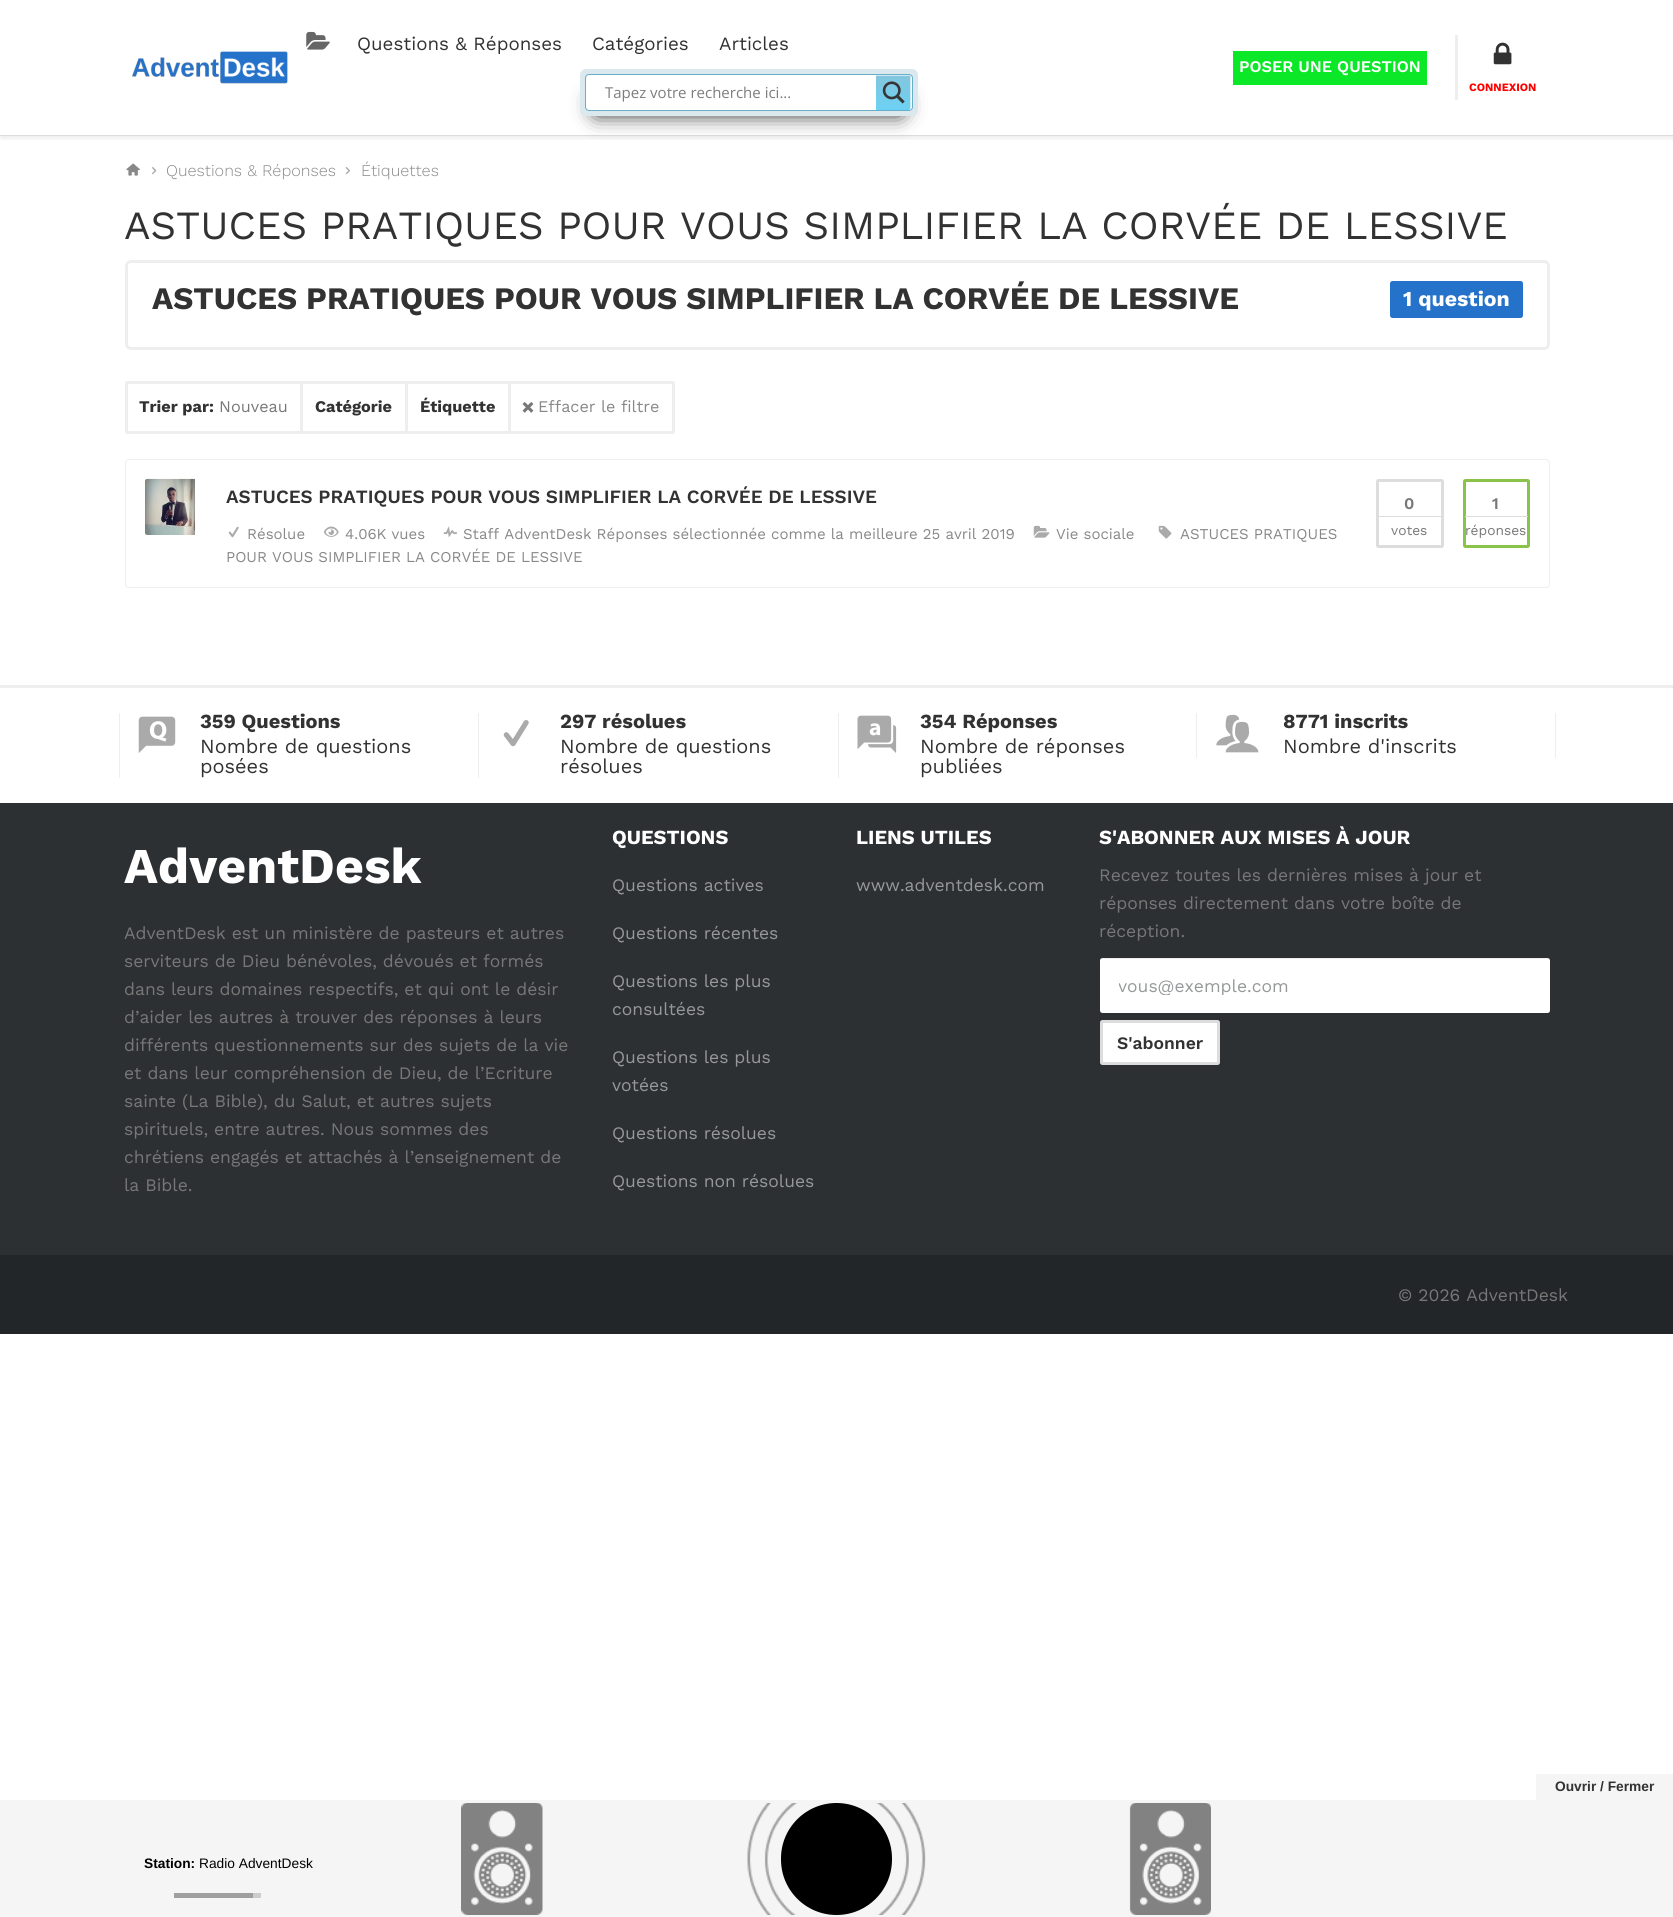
import math
import cairo

surface = cairo.ImageSurface(cairo.FORMAT_RGB24, 1673, 1917)
ctx = cairo.Context(surface)
options = cairo.FontOptions()
options.set_hint_metrics(cairo.HINT_METRICS_OFF)
options.set_hint_style(cairo.HINT_STYLE_NONE)
ctx.set_font_options(options)
ctx.set_miter_limit(4)


def set_color(code):
    ctx.set_source_rgb(*(v / 255 for v in bytes.fromhex(code[-6:])))


def draw_text(x, y, s, family, size, color, bold=False, italic=False):
    ctx.select_font_face(family, cairo.FONT_SLANT_ITALIC if italic else cairo.FONT_SLANT_NORMAL, cairo.FONT_WEIGHT_BOLD if bold else cairo.FONT_WEIGHT_NORMAL)
    ctx.set_font_size(size)
    set_color(color)
    ctx.move_to(x, y)
    ctx.show_text(s)


def fill_rect(x, y, w, h, color):
    set_color(color)
    ctx.rectangle(x, y, w, h)
    ctx.fill()


def rounded_rect(x, y, w, h, r):
    ctx.new_sub_path()
    for i, (u, v) in enumerate([(x + w - r, y + h - r), (x + r, y + h - r), (x + r, y + r), (x + w - r, y + r)]):
        ctx.arc(u, v, r, i * math.pi / 2, (i + 1) * math.pi / 2)
    ctx.close_path()


def draw_shadow(x, y, w, h, r, blur, alpha):
    ctx.push_group_with_content(cairo.CONTENT_ALPHA)
    ctx.set_operator(cairo.OPERATOR_SOURCE)
    for i in range(15, -16, -2):
        e = blur * i / 6
        if min(w, h) + 2 * e > 0:
            ctx.set_source_rgba(0, 0, 0, alpha * math.erfc((i - 1) / 8.5) / 2)
            rounded_rect(x - e, y - e, w + 2 * e, h + 2 * e, max(0, min(r + e + blur * .6, min(w, h) / 2 + e)))
            ctx.fill()
    ctx.mask(ctx.pop_group())


def draw_image(path, x, y, w, h):
    ctx.save()
    ctx.set_source_surface(cairo.ImageSurface.create_from_png(path), x, y)
    ctx.rectangle(x, y, w, h)
    ctx.fill()
    ctx.restore()


set_color("#ffffff")
ctx.paint()
ctx.save()
ctx.rectangle(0, 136, 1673, 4)
ctx.clip()
set_color("#000000")
draw_shadow(0, 3, 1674, 136, 0, 2.5, 0.07)
ctx.restore()
fill_rect(0, 135, 1673, 1, "#dddddd")
draw_image("assets/img1.png", 132, 51, 156, 33)
draw_image("assets/img2.png", 306, 31, 24, 19)
draw_text(357, 50, "Questions & Réponses", "Work Sans", 18.75, "#323232")
draw_text(592, 50, "Catégories", "Work Sans", 18.75, "#323232")
draw_text(719, 50, "Articles", "Work Sans", 18.75, "#323232")
set_color("#000000")
draw_shadow(596, 98, 305, 15, 0, 11, 1)
set_color("#dbe9ee")
rounded_rect(580, 69, 338, 47, 6)
ctx.fill()
set_color("#ffffff")
rounded_rect(585.5, 74.5, 327, 36, 3.5)
ctx.fill_preserve()
set_color("#68aec7")
ctx.set_line_width(1)
ctx.stroke()
draw_text(605, 98, "Tapez votre recherche ici...", "Open Sans", 15, "#7d7d7d")
gradient = cairo.LinearGradient(894, 75, 894, 110)
gradient.add_color_stop_rgba(0, 0.518, 0.773, 0.863, 1)
gradient.add_color_stop_rgba(1, 0.424, 0.82, 0.961, 1)
ctx.set_source(gradient)
ctx.new_path()
ctx.move_to(876, 75)
ctx.line_to(908.5, 75)
ctx.curve_to(910, 75, 911, 76, 911, 77.5)
ctx.line_to(911, 107.5)
ctx.curve_to(911, 109, 910, 110, 908.5, 110)
ctx.line_to(876, 110)
ctx.close_path()
ctx.fill()
ctx.save()
ctx.rectangle(876, 75, 35, 35)
ctx.clip()
ctx.set_source_rgba(1, 1, 1, 0.61)
ctx.new_path()
ctx.move_to(875, 76)
ctx.line_to(875, 110)
ctx.line_to(752, 110)
ctx.line_to(752, 75)
ctx.line_to(908, 75)
ctx.curve_to(910, 75, 911, 76, 911, 78)
ctx.line_to(911, 108)
ctx.curve_to(911, 108, 911, 109, 910, 110)
ctx.line_to(910, 76)
ctx.close_path()
ctx.fill()
ctx.restore()
draw_image("assets/img3.png", 882, 81, 23, 23)
set_color("#0ae827")
rounded_rect(1231.5, 49.5, 197, 37, 1)
ctx.fill_preserve()
set_color("#ffffff")
ctx.set_line_width(3)
ctx.stroke()
draw_text(1239, 72, "POSER UNE QUESTION", "Work Sans SemiBold", 16.25, "#ffffff")
fill_rect(1455, 35, 3, 65, "#eeeeee")
draw_image("assets/img4.png", 1493, 42, 19, 23)
draw_text(1469, 91, "CONNEXION", "Work Sans", 11.25, "#ff0000", bold=True)
draw_image("assets/img5.png", 126, 163, 14, 13)
draw_image("assets/img6.png", 152, 167, 5, 8)
draw_text(166, 176, "Questions & Réponses", "Work Sans Light", 16.25, "#888888")
draw_image("assets/img7.png", 345, 167, 5, 8)
draw_text(361, 176, "Étiquettes", "Work Sans Light", 16.25, "#888888")
draw_text(124, 239, "ASTUCES PRATIQUES POUR VOUS SIMPLIFIER LA CORVÉE DE LESSIVE", "Work Sans", 40, "#323232")
rounded_rect(126.5, 261.5, 1422, 87, 4.5)
set_color("#eeeeee")
ctx.stroke()
draw_text(152, 309, "ASTUCES PRATIQUES POUR VOUS SIMPLIFIER LA CORVÉE DE LESSIVE", "Work Sans", 31.25, "#323232", bold=True)
set_color("#2572cb")
rounded_rect(1390, 281, 133, 37, 2.5)
ctx.fill()
draw_text(1403, 306, "1 question", "Work Sans", 21.25, "#ffffff", bold=True)
rounded_rect(126.5, 382.5, 547, 50, 1)
set_color("#eeeeee")
ctx.stroke()
fill_rect(300, 384, 3, 47, "#eeeeee")
draw_text(139, 412, "Trier par:", "Work Sans", 16.25, "#323232", bold=True)
draw_text(219, 412, "Nouveau", "Work Sans", 16.25, "#777777")
fill_rect(405, 384, 3, 47, "#eeeeee")
draw_text(315, 412, "Catégorie", "Work Sans", 16.25, "#323232", bold=True)
fill_rect(508, 384, 3, 47, "#eeeeee")
draw_text(420, 412, "Étiquette", "Work Sans", 16.25, "#323232", bold=True)
draw_image("assets/img8.png", 522, 402, 12, 11)
draw_text(538, 412, "Effacer le filtre", "Work Sans", 16.25, "#888888")
rounded_rect(125.5, 459.5, 1424, 128, 3.5)
set_color("#eeeeee")
ctx.set_line_width(1)
ctx.stroke()
draw_image("assets/img9.png", 145, 478, 51, 57)
draw_text(226, 503, "ASTUCES PRATIQUES POUR VOUS SIMPLIFIER LA CORVÉE DE LESSIVE", "Work Sans SemiBold", 18.75, "#323232")
draw_image("assets/img10.png", 228, 526, 11, 12)
draw_text(247, 539, "Résolue", "Work Sans", 15, "#888888")
draw_image("assets/img11.png", 323, 526, 16, 11)
draw_text(345, 539, "4.06K vues", "Work Sans", 15, "#888888")
draw_image("assets/img12.png", 443, 526, 14, 12)
draw_text(463, 539, "Staff AdventDesk Réponses sélectionnée comme la meilleure 25 avril 2019", "Work Sans", 15, "#888888")
draw_image("assets/img13.png", 1033, 525, 17, 13)
draw_text(1056, 539, "Vie sociale", "Work Sans", 15, "#888888")
draw_image("assets/img14.png", 1158, 525, 14, 14)
draw_text(1180, 539, "ASTUCES PRATIQUES", "Work Sans", 15, "#888888")
draw_text(226, 562, "POUR VOUS SIMPLIFIER LA CORVÉE DE LESSIVE", "Work Sans", 15, "#888888")
rounded_rect(1377.5, 480.5, 65, 66, 1)
set_color("#dddddd")
ctx.set_line_width(3)
ctx.stroke()
fill_rect(1379, 516, 62, 1, "#dddddd")
draw_text(1404, 509, "0", "Work Sans SemiBold", 16.25, "#777777")
draw_text(1391, 535, "votes", "Work Sans", 13.75, "#777777")
rounded_rect(1464.5, 480.5, 64, 66, 1)
set_color("#8bc34a")
ctx.stroke()
fill_rect(1465, 516, 63, 1, "#dddddd")
draw_text(1492, 509, "1", "Work Sans SemiBold", 16.25, "#777777")
draw_text(1465, 535, "réponses", "Work Sans", 13.75, "#777777")
fill_rect(0, 685, 1673, 3, "#eeeeee")
fill_rect(119, 713, 1, 65, "#eeeeee")
draw_image("assets/img15.png", 138, 716, 38, 37)
draw_text(200, 728, "359 Questions", "Work Sans", 20, "#323232", bold=True)
draw_text(200, 753, "Nombre de questions", "Work Sans", 20, "#323232")
draw_text(200, 773, "posées", "Work Sans", 20, "#323232")
fill_rect(478, 713, 1, 65, "#eeeeee")
draw_image("assets/img16.png", 503, 720, 26, 27)
draw_text(560, 728, "297 résolues", "Work Sans", 20, "#323232", bold=True)
draw_text(560, 753, "Nombre de questions", "Work Sans", 20, "#323232")
draw_text(560, 773, "résolues", "Work Sans", 20, "#323232")
fill_rect(838, 713, 1, 65, "#eeeeee")
draw_image("assets/img17.png", 857, 715, 40, 38)
draw_text(920, 728, "354 Réponses", "Work Sans", 20, "#323232", bold=True)
draw_text(920, 753, "Nombre de réponses", "Work Sans", 20, "#323232")
draw_text(920, 773, "publiées", "Work Sans", 20, "#323232")
fill_rect(1555, 713, 1, 45, "#eeeeee")
fill_rect(1196, 713, 1, 45, "#eeeeee")
draw_image("assets/img18.png", 1216, 714, 43, 39)
draw_text(1283, 728, "8771 inscrits", "Work Sans", 20, "#323232", bold=True)
draw_text(1283, 753, "Nombre d'inscrits", "Work Sans", 20, "#323232")
fill_rect(0, 1255, 1673, 79, "#222629")
fill_rect(0, 803, 1673, 452, "#2c3033")
draw_text(124, 883, "AdventDesk", "Work Sans", 50, "#ffffff", bold=True)
draw_text(124, 939, "AdventDesk est un ministère de pasteurs et autres", "Work Sans", 17.5, "#777777")
draw_text(124, 967, "serviteurs de Dieu bénévoles, dévoués et formés", "Work Sans", 17.5, "#777777")
draw_text(124, 995, "dans leurs domaines respectifs, et qui ont le désir", "Work Sans", 17.5, "#777777")
draw_text(124, 1023, "d’aider les autres à trouver des réponses à leurs", "Work Sans", 17.5, "#777777")
draw_text(124, 1051, "différents questionnements sur des sujets de la vie", "Work Sans", 17.5, "#777777")
draw_text(124, 1079, "et dans leur compréhension de Dieu, de l’Ecriture", "Work Sans", 17.5, "#777777")
draw_text(124, 1107, "sainte (La Bible), du Salut, et autres sujets", "Work Sans", 17.5, "#777777")
draw_text(124, 1135, "spirituels, entre autres. Nous sommes des", "Work Sans", 17.5, "#777777")
draw_text(124, 1163, "chrétiens engagés et attachés à l’enseignement de", "Work Sans", 17.5, "#777777")
draw_text(124, 1191, "la Bible.", "Work Sans", 17.5, "#777777")
draw_text(612, 844, "QUESTIONS", "Work Sans", 20, "#ffffff", bold=True)
draw_text(612, 891, "Questions actives", "Work Sans", 17.5, "#969899")
draw_text(612, 939, "Questions récentes", "Work Sans", 17.5, "#969899")
draw_text(612, 987, "Questions les plus", "Work Sans", 17.5, "#969899")
draw_text(612, 1015, "consultées", "Work Sans", 17.5, "#969899")
draw_text(612, 1063, "Questions les plus", "Work Sans", 17.5, "#969899")
draw_text(612, 1091, "votées", "Work Sans", 17.5, "#969899")
draw_text(612, 1139, "Questions résolues", "Work Sans", 17.5, "#969899")
draw_text(612, 1187, "Questions non résolues", "Work Sans", 17.5, "#969899")
draw_text(856, 844, "LIENS UTILES", "Work Sans", 20, "#ffffff", bold=True)
draw_text(856, 891, "www.adventdesk.com", "Work Sans", 17.5, "#969899")
draw_text(1099, 844, "S'ABONNER AUX MISES À JOUR", "Work Sans", 20, "#ffffff", bold=True)
draw_text(1099, 881, "Recevez toutes les dernières mises à jour et", "Work Sans", 17.5, "#777777")
draw_text(1099, 909, "réponses directement dans votre boîte de", "Work Sans", 17.5, "#777777")
draw_text(1099, 937, "réception.", "Work Sans", 17.5, "#777777")
set_color("#ffffff")
rounded_rect(1100, 958, 450, 55, 2.5)
ctx.fill()
ctx.set_source_rgba(0, 0, 0, 0.07)
ctx.new_path()
ctx.move_to(1102, 959)
ctx.line_to(1548, 959)
ctx.curve_to(1549, 959, 1550, 960, 1550, 961)
ctx.curve_to(1550, 959, 1549, 958, 1548, 958)
ctx.line_to(1102, 958)
ctx.curve_to(1101, 958, 1100, 959, 1100, 961)
ctx.curve_to(1100, 960, 1101, 959, 1102, 959)
ctx.close_path()
ctx.fill()
ctx.save()
ctx.rectangle(1119, 975, 412, 20)
ctx.clip()
draw_text(1118, 992, "vous@exemple.com", "Work Sans", 17.5, "#969899")
ctx.restore()
set_color("#ffffff")
rounded_rect(1101.5, 1021.5, 117, 42, 1)
ctx.fill_preserve()
set_color("#dddddd")
ctx.stroke()
draw_text(1117, 1049, "S'abonner", "Work Sans SemiBold", 17.5, "#323232")
draw_text(1398, 1301, "© 2026 AdventDesk", "Work Sans", 17.5, "#777777")
fill_rect(0, 1800, 1673, 117, "#f5f5f5")
ctx.save()
ctx.rectangle(0, 1800, 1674, 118)
ctx.clip()
set_color("#000000")
rounded_rect(764.5, 1786.5, 144, 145, 72)
ctx.fill_preserve()
set_color("#f5f5f5")
ctx.set_line_width(33)
ctx.stroke()
ctx.restore()
draw_image("assets/img19.png", 461, 1803, 750, 112)
fill_rect(1536, 1774, 137, 26, "#f5f5f5")
draw_text(1555, 1791, "Ouvrir / Fermer", "Liberation Sans", 13.75, "#323232", bold=True)
fill_rect(253, 1893, 8, 5, "#cccccc")
fill_rect(174, 1893, 79, 5, "#9f9f9f")
draw_text(144, 1868, "Station:", "Liberation Sans", 13.75, "#000000", bold=True)
draw_text(199, 1868, "Radio AdventDesk", "Liberation Sans", 13.75, "#000000")
surface.write_to_png("output.png")
